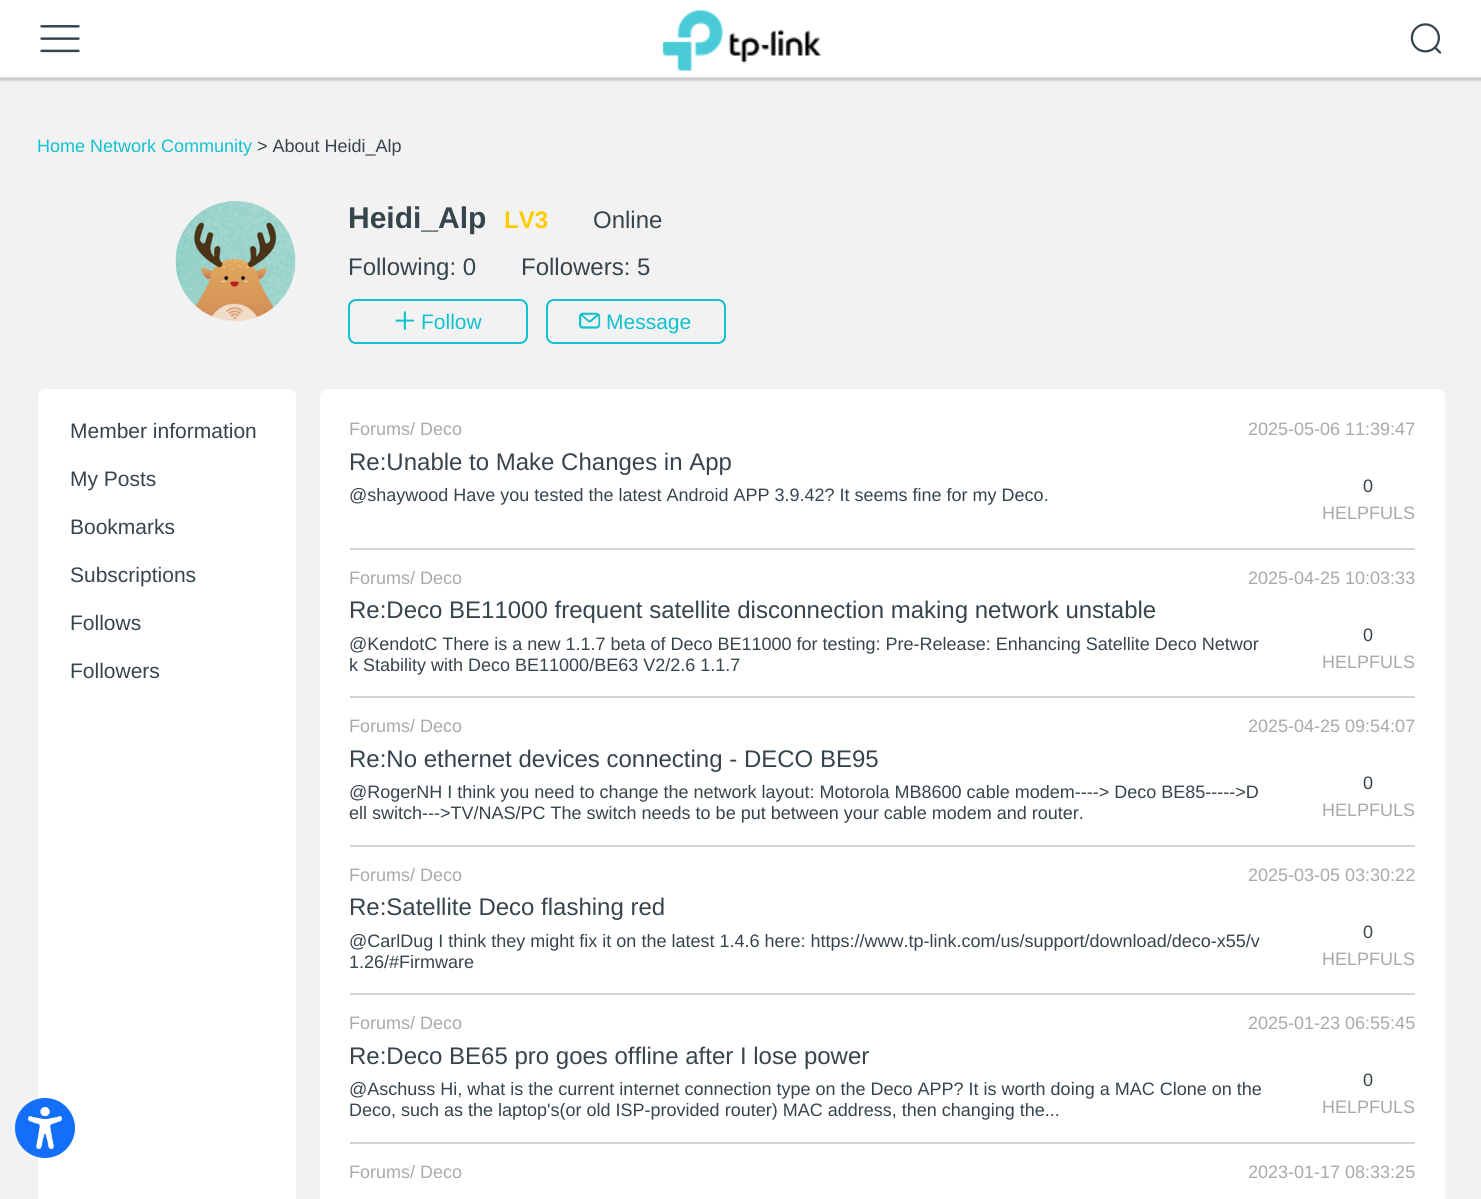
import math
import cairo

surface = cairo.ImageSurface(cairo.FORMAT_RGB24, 1481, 1199)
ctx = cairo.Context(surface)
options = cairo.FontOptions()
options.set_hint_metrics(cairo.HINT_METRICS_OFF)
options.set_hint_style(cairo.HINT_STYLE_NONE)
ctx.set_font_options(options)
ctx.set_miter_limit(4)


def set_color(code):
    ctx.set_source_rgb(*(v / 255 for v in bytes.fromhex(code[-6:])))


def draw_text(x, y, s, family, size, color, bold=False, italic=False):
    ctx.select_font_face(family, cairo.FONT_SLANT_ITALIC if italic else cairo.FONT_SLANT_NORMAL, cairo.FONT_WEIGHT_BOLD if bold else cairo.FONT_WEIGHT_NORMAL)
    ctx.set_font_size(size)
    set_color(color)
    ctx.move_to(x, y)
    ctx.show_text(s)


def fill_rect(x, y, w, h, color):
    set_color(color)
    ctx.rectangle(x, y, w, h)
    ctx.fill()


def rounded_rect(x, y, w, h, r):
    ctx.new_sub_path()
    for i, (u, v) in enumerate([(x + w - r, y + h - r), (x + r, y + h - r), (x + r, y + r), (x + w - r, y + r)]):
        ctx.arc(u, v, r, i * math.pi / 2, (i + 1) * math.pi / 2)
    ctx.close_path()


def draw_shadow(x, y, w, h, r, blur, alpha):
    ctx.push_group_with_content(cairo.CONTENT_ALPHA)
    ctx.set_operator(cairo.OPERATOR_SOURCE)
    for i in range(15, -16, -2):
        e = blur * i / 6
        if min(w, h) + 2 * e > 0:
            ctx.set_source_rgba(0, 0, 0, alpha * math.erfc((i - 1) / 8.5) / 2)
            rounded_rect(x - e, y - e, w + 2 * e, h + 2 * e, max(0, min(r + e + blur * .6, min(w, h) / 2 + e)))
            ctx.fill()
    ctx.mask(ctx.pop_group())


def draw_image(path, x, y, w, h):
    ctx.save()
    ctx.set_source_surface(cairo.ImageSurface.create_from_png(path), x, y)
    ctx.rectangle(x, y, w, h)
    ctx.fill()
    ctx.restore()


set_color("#f2f2f2")
ctx.paint()
fill_rect(0, 0, 1481, 78, "#ffffff")
draw_image("assets/img1.png", 40, 25, 40, 28)
draw_image("assets/img2.png", 662, 10, 159, 61)
draw_image("assets/img3.png", 1410, 23, 32, 31)
set_color("#212121")
draw_shadow(0, 78, 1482, 2, 0, 1.5, 0.3)
draw_text(37, 152, "Home Network Community", "Liberation Sans", 18, "#10c1d0")
draw_text(257, 152, "> About Heidi_Alp", "Liberation Sans", 18, "#36444b")
draw_image("assets/img4.png", 175, 201, 121, 120)
draw_text(348, 228, "Heidi_Alp", "Liberation Sans", 30, "#36444b", bold=True)
draw_text(504, 228, "LV3", "Liberation Sans", 24, "#ffcb00", bold=True)
draw_text(593, 228, "Online", "Liberation Sans", 24, "#36444b")
draw_text(348, 275, "Following: 0", "Liberation Sans", 24, "#36444b")
draw_text(521, 275, "Followers: 5", "Liberation Sans", 24, "#36444b")
rounded_rect(349, 300, 178, 43, 7)
set_color("#10c1d0")
ctx.stroke()
draw_image("assets/img5.png", 395, 311, 20, 19)
draw_text(421, 329, "Follow", "Liberation Sans", 21, "#10c1d0")
rounded_rect(547, 300, 178, 43, 7)
ctx.stroke()
draw_image("assets/img6.png", 579, 312, 22, 17)
draw_text(606, 329, "Message", "Liberation Sans", 21, "#10c1d0")
set_color("#ffffff")
rounded_rect(38, 389, 258, 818, 8)
ctx.fill()
rounded_rect(38, 389, 258, 324, 8)
ctx.fill()
draw_text(70, 438, "Member information", "Liberation Sans", 21, "#36444b")
draw_text(70, 486, "My Posts", "Liberation Sans", 21, "#36444b")
draw_text(70, 534, "Bookmarks", "Liberation Sans", 21, "#36444b")
draw_text(70, 582, "Subscriptions", "Liberation Sans", 21, "#36444b")
draw_text(70, 630, "Follows", "Liberation Sans", 21, "#36444b")
draw_text(70, 678, "Followers", "Liberation Sans", 21, "#36444b")
set_color("#ffffff")
rounded_rect(320, 389, 1125, 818, 8)
ctx.fill()
fill_rect(350, 548, 1065, 2, "#d3d4d5")
draw_text(349, 435, "Forums/ Deco", "Liberation Sans", 18, "#a7a9ac")
draw_text(1248, 435, "2025-05-06 11:39:47", "Liberation Sans", 18, "#a7a9ac")
draw_text(349, 470, "Re:Unable to Make Changes in App", "Liberation Sans", 24, "#36444b")
draw_text(349, 501, "@shaywood Have you tested the latest Android APP 3.9.42? It seems fine for my Deco.", "Liberation Sans", 18, "#36444b")
draw_text(1363, 492, "0", "Liberation Sans", 18, "#36444b")
draw_text(1322, 519, "HELPFULS", "Liberation Sans", 18, "#a7a9ac")
fill_rect(350, 696, 1065, 2, "#d3d4d5")
draw_text(349, 584, "Forums/ Deco", "Liberation Sans", 18, "#a7a9ac")
draw_text(1248, 584, "2025-04-25 10:03:33", "Liberation Sans", 18, "#a7a9ac")
draw_text(349, 618, "Re:Deco BE11000 frequent satellite disconnection making network unstable", "Liberation Sans", 24, "#36444b")
draw_text(349, 650, "@KendotC There is a new 1.1.7 beta of Deco BE11000 for testing: Pre-Release: Enhancing Satellite Deco Networ", "Liberation Sans", 18, "#36444b")
draw_text(349, 671, "k Stability with Deco BE11000/BE63 V2/2.6 1.1.7", "Liberation Sans", 18, "#36444b")
draw_text(1363, 641, "0", "Liberation Sans", 18, "#36444b")
draw_text(1322, 668, "HELPFULS", "Liberation Sans", 18, "#a7a9ac")
fill_rect(350, 845, 1065, 2, "#d3d4d5")
draw_text(349, 732, "Forums/ Deco", "Liberation Sans", 18, "#a7a9ac")
draw_text(1248, 732, "2025-04-25 09:54:07", "Liberation Sans", 18, "#a7a9ac")
draw_text(349, 767, "Re:No ethernet devices connecting - DECO BE95", "Liberation Sans", 24, "#36444b")
draw_text(349, 798, "@RogerNH I think you need to change the network layout: Motorola MB8600 cable modem----> Deco BE85----->D", "Liberation Sans", 18, "#36444b")
draw_text(349, 819, "ell switch--->TV/NAS/PC The switch needs to be put between your cable modem and router.", "Liberation Sans", 18, "#36444b")
draw_text(1363, 789, "0", "Liberation Sans", 18, "#36444b")
draw_text(1322, 816, "HELPFULS", "Liberation Sans", 18, "#a7a9ac")
fill_rect(350, 993, 1065, 2, "#d3d4d5")
draw_text(349, 881, "Forums/ Deco", "Liberation Sans", 18, "#a7a9ac")
draw_text(1248, 881, "2025-03-05 03:30:22", "Liberation Sans", 18, "#a7a9ac")
draw_text(349, 915, "Re:Satellite Deco flashing red", "Liberation Sans", 24, "#36444b")
draw_text(349, 947, "@CarlDug I think they might fix it on the latest 1.4.6 here: https://www.tp-link.com/us/support/download/deco-x55/v", "Liberation Sans", 18, "#36444b")
draw_text(349, 968, "1.26/#Firmware", "Liberation Sans", 18, "#36444b")
draw_text(1363, 938, "0", "Liberation Sans", 18, "#36444b")
draw_text(1322, 965, "HELPFULS", "Liberation Sans", 18, "#a7a9ac")
fill_rect(350, 1142, 1065, 2, "#d3d4d5")
draw_text(349, 1029, "Forums/ Deco", "Liberation Sans", 18, "#a7a9ac")
draw_text(1248, 1029, "2025-01-23 06:55:45", "Liberation Sans", 18, "#a7a9ac")
draw_text(349, 1064, "Re:Deco BE65 pro goes offline after I lose power", "Liberation Sans", 24, "#36444b")
draw_text(349, 1095, "@Aschuss Hi, what is the current internet connection type on the Deco APP? It is worth doing a MAC Clone on the", "Liberation Sans", 18, "#36444b")
draw_text(349, 1116, "Deco, such as the laptop's(or old ISP-provided router) MAC address, then changing the...", "Liberation Sans", 18, "#36444b")
draw_text(1363, 1086, "0", "Liberation Sans", 18, "#36444b")
draw_text(1322, 1113, "HELPFULS", "Liberation Sans", 18, "#a7a9ac")
draw_text(349, 1178, "Forums/ Deco", "Liberation Sans", 18, "#a7a9ac")
draw_text(1248, 1178, "2023-01-17 08:33:25", "Liberation Sans", 18, "#a7a9ac")
set_color("#146ff8")
ctx.new_path()
ctx.arc(45, 1128, 30, 0, 2 * math.pi)
ctx.fill()
draw_image("assets/img7.png", 28, 1107, 34, 42)
surface.write_to_png("output.png")
